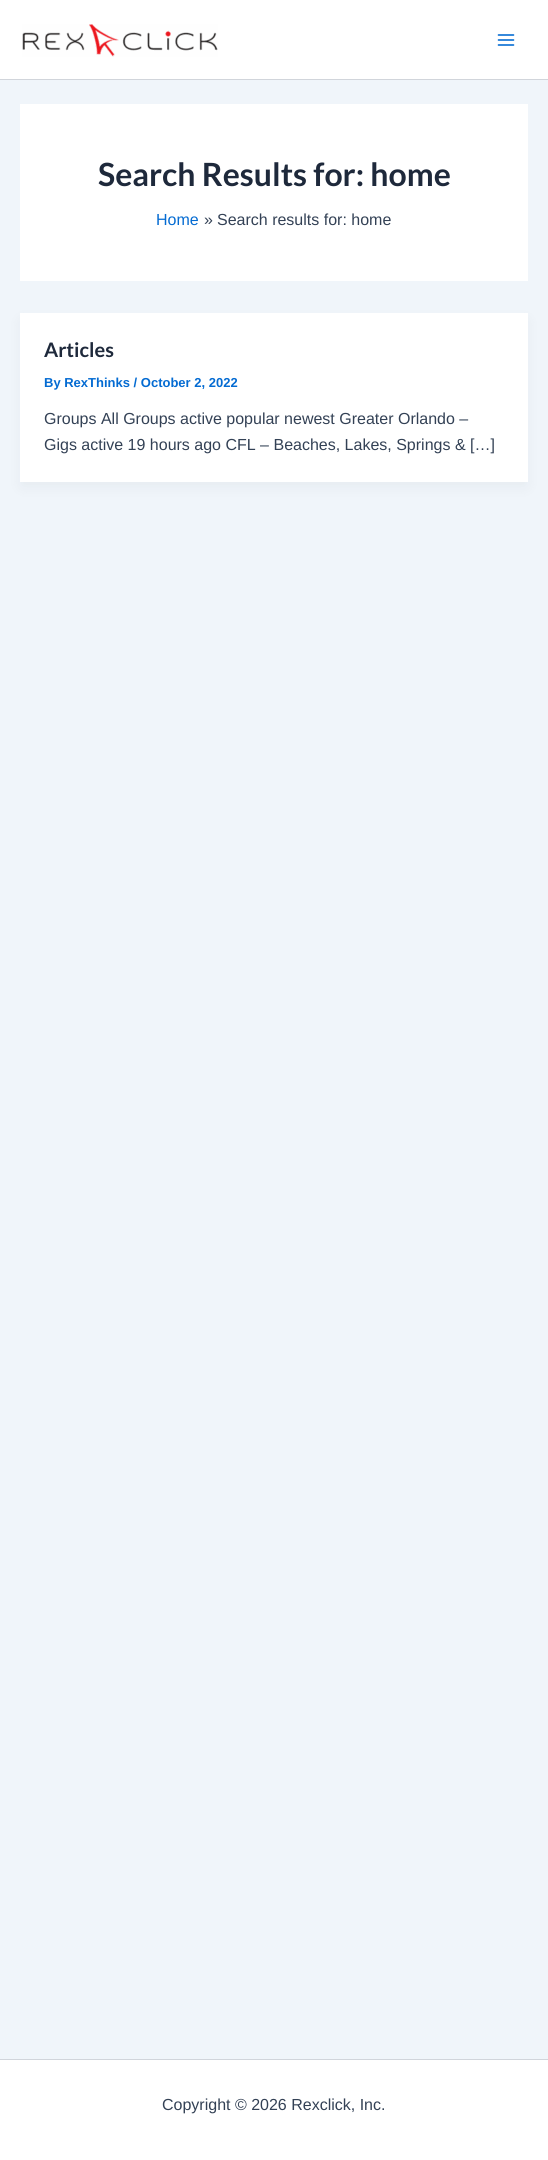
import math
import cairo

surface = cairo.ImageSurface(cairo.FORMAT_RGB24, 548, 2160)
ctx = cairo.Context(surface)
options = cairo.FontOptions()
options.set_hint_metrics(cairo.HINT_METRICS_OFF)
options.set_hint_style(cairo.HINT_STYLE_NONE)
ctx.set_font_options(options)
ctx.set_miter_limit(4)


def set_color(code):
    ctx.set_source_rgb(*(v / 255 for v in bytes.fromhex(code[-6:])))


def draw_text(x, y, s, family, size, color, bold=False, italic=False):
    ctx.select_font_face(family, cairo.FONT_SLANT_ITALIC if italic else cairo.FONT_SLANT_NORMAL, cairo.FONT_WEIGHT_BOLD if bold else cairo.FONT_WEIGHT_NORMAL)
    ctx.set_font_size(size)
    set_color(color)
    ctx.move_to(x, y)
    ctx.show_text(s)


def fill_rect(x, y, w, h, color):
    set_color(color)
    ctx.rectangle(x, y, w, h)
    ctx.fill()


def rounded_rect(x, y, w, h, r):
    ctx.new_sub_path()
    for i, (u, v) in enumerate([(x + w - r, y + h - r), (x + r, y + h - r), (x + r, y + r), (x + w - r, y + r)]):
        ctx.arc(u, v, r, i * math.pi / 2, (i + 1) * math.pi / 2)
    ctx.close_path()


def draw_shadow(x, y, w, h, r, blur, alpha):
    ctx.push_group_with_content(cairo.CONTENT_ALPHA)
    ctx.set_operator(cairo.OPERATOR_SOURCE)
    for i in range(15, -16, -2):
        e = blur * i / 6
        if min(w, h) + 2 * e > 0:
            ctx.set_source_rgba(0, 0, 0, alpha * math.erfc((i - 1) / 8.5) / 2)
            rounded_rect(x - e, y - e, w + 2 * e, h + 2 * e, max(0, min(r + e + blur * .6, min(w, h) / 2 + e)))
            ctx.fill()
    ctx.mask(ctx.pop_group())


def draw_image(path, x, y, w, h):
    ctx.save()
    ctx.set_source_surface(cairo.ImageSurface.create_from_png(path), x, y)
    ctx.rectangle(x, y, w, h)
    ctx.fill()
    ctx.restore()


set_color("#f0f5fa")
ctx.paint()
fill_rect(0, 0, 548, 79, "#ffffff")
fill_rect(0, 79, 548, 1, "#d1d5db")
draw_image("assets/img1.png", 22, 24, 196, 33)
draw_image("assets/img2.png", 497, 34, 18, 12)
fill_rect(20, 104, 508, 177, "#ffffff")
draw_text(98, 186, "Search Results for: home", "Lato", 32, "#1e293b", bold=True)
draw_text(156, 225, "Home", "Liberation Sans", 16, "#046bd2")
draw_text(204, 225, "»", "Liberation Sans", 16, "#334155")
draw_text(217, 225, "Search results for: home", "Liberation Sans", 16, "#334155")
set_color("#101828")
draw_shadow(22, 321, 504, 165, 0, 7.5, 0.05)
fill_rect(20, 313, 508, 169, "#ffffff")
draw_text(44, 357, "Articles", "Lato", 20, "#1e293b", bold=True)
draw_text(44, 387, "By RexThinks / October 2, 2022", "Liberation Sans", 13, "#046bd2", bold=True)
draw_text(44, 424, "Groups All Groups active popular newest Greater Orlando –", "Liberation Sans", 16, "#334155")
draw_text(44, 450, "Gigs active 19 hours ago CFL – Beaches, Lakes, Springs & […]", "Liberation Sans", 16, "#334155")
fill_rect(0, 2060, 548, 100, "#ffffff")
fill_rect(0, 2059, 548, 1, "#d1d5db")
draw_text(162, 2110, "Copyright © 2026 Rexclick, Inc.", "Liberation Sans", 16, "#334155")
surface.write_to_png("output.png")
